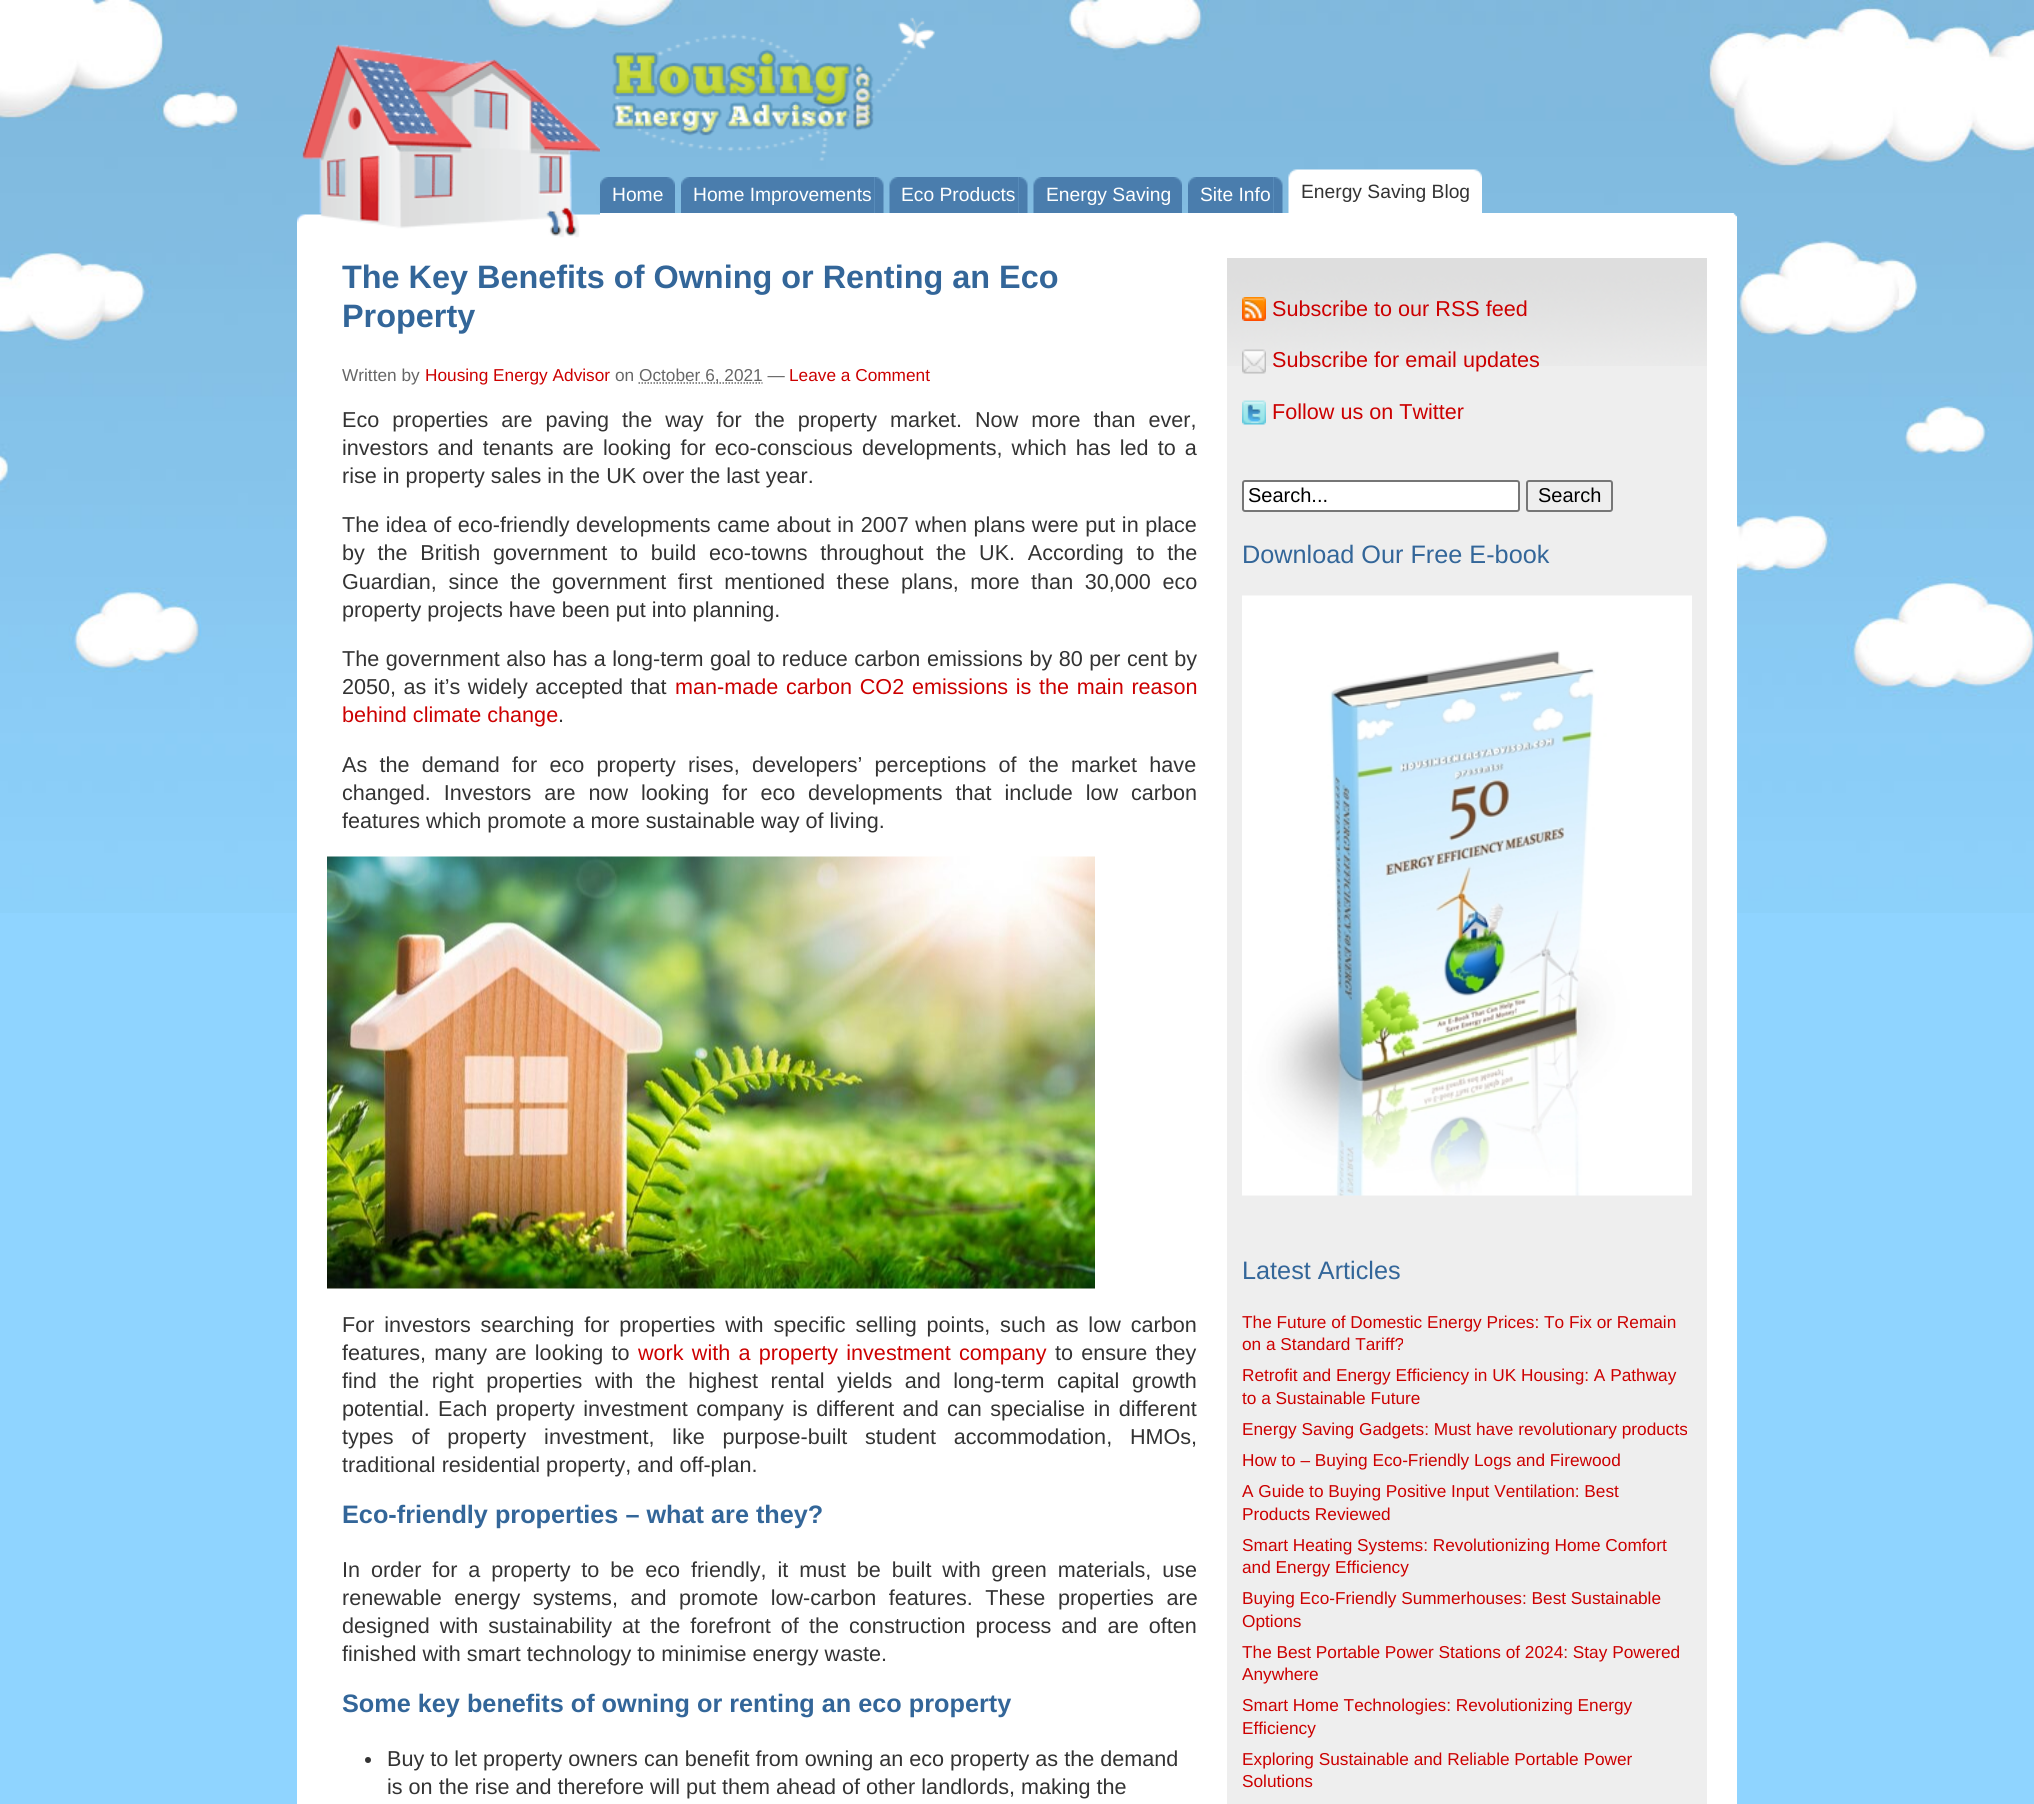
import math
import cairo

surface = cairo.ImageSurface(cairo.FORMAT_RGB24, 2034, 1804)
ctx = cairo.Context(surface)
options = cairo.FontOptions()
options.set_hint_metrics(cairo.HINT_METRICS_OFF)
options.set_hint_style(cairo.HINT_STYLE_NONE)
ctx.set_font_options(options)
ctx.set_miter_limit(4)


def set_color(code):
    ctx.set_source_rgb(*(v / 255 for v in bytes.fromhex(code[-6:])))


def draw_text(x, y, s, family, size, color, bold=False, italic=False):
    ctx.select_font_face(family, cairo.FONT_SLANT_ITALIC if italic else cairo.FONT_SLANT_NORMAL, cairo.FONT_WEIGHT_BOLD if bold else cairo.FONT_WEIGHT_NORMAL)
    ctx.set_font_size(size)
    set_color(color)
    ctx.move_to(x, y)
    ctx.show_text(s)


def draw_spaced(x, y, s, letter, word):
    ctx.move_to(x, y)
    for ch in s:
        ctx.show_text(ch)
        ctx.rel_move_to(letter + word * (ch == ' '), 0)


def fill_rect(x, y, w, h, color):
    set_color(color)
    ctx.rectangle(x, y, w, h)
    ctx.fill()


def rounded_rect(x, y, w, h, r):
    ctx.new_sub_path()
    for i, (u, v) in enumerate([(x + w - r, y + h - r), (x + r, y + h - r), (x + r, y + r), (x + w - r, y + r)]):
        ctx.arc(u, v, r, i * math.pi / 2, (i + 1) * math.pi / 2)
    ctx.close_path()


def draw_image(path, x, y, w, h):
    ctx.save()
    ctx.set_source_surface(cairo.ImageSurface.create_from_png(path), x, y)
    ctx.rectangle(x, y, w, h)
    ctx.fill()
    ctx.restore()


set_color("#8fd4ff")
ctx.paint()
draw_image("assets/img1.png", 0, 0, 2034, 913)
draw_image("assets/img2.png", 297, 44, 303, 214)
draw_image("assets/img3.png", 612, 17, 323, 144)
draw_image("assets/img4.png", 600, 213, 1137, 45)
draw_image("assets/img5.png", 666, 177, 9, 36)
draw_image("assets/img6.png", 600, 177, 66, 36)
draw_text(612, 201, "Home", "Liberation Sans", 19.25, "#ffffff")
draw_image("assets/img7.png", 874, 177, 10, 36)
draw_image("assets/img8.png", 681, 177, 194, 36)
draw_text(693, 201, "Home Improvements", "Liberation Sans", 19.25, "#ffffff")
draw_image("assets/img7.png", 1018, 177, 10, 36)
draw_image("assets/img9.png", 889, 177, 130, 36)
draw_text(901, 201, "Eco Products", "Liberation Sans", 19.25, "#ffffff")
draw_image("assets/img10.png", 1173, 177, 9, 36)
draw_image("assets/img11.png", 1033, 177, 140, 36)
draw_text(1046, 201, "Energy Saving", "Liberation Sans", 19.25, "#ffffff")
draw_image("assets/img12.png", 1273, 177, 10, 36)
draw_image("assets/img13.png", 1188, 177, 86, 36)
draw_text(1200, 201, "Site Info", "Liberation Sans", 19.25, "#ffffff")
draw_image("assets/img14.png", 1473, 169, 9, 44)
draw_image("assets/img15.png", 1288, 169, 185, 44)
draw_text(1301, 198, "Energy Saving Blog", "Liberation Sans", 19.25, "#333333")
fill_rect(297, 258, 1440, 1546, "#ffffff")
draw_text(342, 288, "The Key Benefits of Owning or Renting an Eco", "Liberation Sans", 32.4, "#336699", bold=True)
draw_text(342, 327, "Property", "Liberation Sans", 32.4, "#336699", bold=True)
draw_text(342, 381, "Written by", "Liberation Sans", 17.25, "#666666")
draw_text(425, 381, "Housing Energy Advisor", "Liberation Sans", 17.25, "#cc0000")
draw_text(615, 381, "on", "Liberation Sans", 17.25, "#666666")
ctx.new_path()
ctx.move_to(638.5, 383)
ctx.line_to(762.5, 383)
ctx.set_line_width(1.5)
ctx.set_dash([1.5, 1.5])
ctx.stroke()
draw_text(639, 381, "October 6, 2021 —", "Liberation Sans", 17.25, "#666666")
draw_text(789, 381, "Leave a Comment", "Liberation Sans", 17.25, "#cc0000")
ctx.set_font_size(21.6)
set_color("#333333")
draw_spaced(342, 427, "Eco properties are paving the way for the property market. Now more than ever,", 0, 7)
draw_spaced(342, 455, "investors and tenants are looking for eco-conscious developments, which has led to a", 0, 3.1)
draw_text(342, 483, "rise in property sales in the UK over the last year.", "Liberation Sans", 21.6, "#333333")
draw_spaced(342, 532, "The idea of eco-friendly developments came about in 2007 when plans were put in place", 0, 0.6)
draw_spaced(342, 560, "by the British government to build eco-towns throughout the UK. According to the", 0, 6.75)
draw_spaced(342, 589, "Guardian, since the government first mentioned these plans, more than 30,000 eco", 0, 5.6)
draw_text(342, 617, "property projects have been put into planning.", "Liberation Sans", 21.6, "#333333")
draw_spaced(342, 666, "The government also has a long-term goal to reduce carbon emissions by 80 per cent by", 0, 0.5)
draw_spaced(342, 694, "2050, as it’s widely accepted that", 0, 1.5)
set_color("#cc0000")
draw_spaced(675, 694, "man-made carbon CO2 emissions is the main reason", 0, 1.75)
draw_text(342, 722, "behind climate change", "Liberation Sans", 21.6, "#cc0000")
draw_text(558, 722, ".", "Liberation Sans", 21.6, "#333333")
draw_spaced(342, 772, "As the demand for eco property rises, developers’ perceptions of the market have", 0, 6.25)
draw_spaced(342, 800, "changed. Investors are now looking for eco developments that include low carbon", 0, 6.9)
draw_text(342, 828, "features which promote a more sustainable way of living.", "Liberation Sans", 21.6, "#333333")
draw_image("assets/img16.png", 327, 856, 768, 433)
draw_spaced(342, 1332, "For investors searching for properties with specific selling points, such as low carbon", 0, 3.9)
draw_spaced(342, 1360, "features, many are looking to", 0, 2.25)
set_color("#cc0000")
draw_spaced(638, 1360, "work with a property investment company", 0, 2.25)
set_color("#333333")
draw_spaced(1055, 1360, "to ensure they", 0, 2.25)
draw_spaced(342, 1388, "find the right properties with the highest rental yields and long-term capital growth", 0, 6.5)
draw_spaced(342, 1416, "potential. Each property investment company is different and can specialise in different", 0, 2.4)
draw_spaced(342, 1444, "types of property investment, like purpose-built student accommodation, HMOs,", 0, 11.75)
draw_text(342, 1472, "traditional residential property, and off-plan.", "Liberation Sans", 21.6, "#333333")
draw_text(342, 1523, "Eco-friendly properties – what are they?", "Liberation Sans", 25.25, "#336699", bold=True)
ctx.select_font_face("Liberation Sans")
ctx.set_font_size(21.6)
set_color("#333333")
draw_spaced(342, 1577, "In order for a property to be eco friendly, it must be built with green materials, use", 0, 4.9)
draw_spaced(342, 1605, "renewable energy systems, and promote low-carbon features. These properties are", 0, 6.5)
draw_spaced(342, 1633, "designed with sustainability at the forefront of the construction process and are often", 0, 4.1)
draw_text(342, 1661, "finished with smart technology to minimise energy waste.", "Liberation Sans", 21.6, "#333333")
draw_text(342, 1712, "Some key benefits of owning or renting an eco property", "Liberation Sans", 25.25, "#336699", bold=True)
set_color("#333333")
ctx.new_path()
ctx.arc(368, 1760, 3, 0, 2 * math.pi)
ctx.fill()
draw_text(387, 1766, "Buy to let property owners can benefit from owning an eco property as the demand", "Liberation Sans", 21.6, "#333333")
draw_text(387, 1794, "is on the rise and therefore will put them ahead of other landlords, making the", "Liberation Sans", 21.6, "#333333")
fill_rect(1227, 366, 480, 1438, "#eeeeee")
draw_image("assets/img17.png", 1227, 258, 480, 108)
draw_image("assets/img18.png", 1242, 297, 24, 24)
draw_text(1272, 316, "Subscribe to our RSS feed", "Liberation Sans", 21.6, "#cc0000")
draw_image("assets/img19.png", 1242, 349, 24, 25)
draw_text(1272, 367, "Subscribe for email updates", "Liberation Sans", 21.6, "#cc0000")
draw_image("assets/img20.png", 1242, 400, 24, 25)
draw_text(1272, 419, "Follow us on Twitter", "Liberation Sans", 21.6, "#cc0000")
set_color("#ffffff")
rounded_rect(1243, 481, 276, 30, 2)
ctx.fill_preserve()
set_color("#767676")
ctx.set_line_width(2)
ctx.set_dash([])
ctx.stroke()
draw_text(1248, 502, "Search...", "Liberation Sans", 20, "#000000")
rounded_rect(1527, 481, 85, 30, 2)
set_color("#767676")
ctx.stroke()
draw_text(1538, 502, "Search", "Liberation Sans", 20, "#000000")
draw_text(1242, 563, "Download Our Free E-book", "Liberation Sans", 25.25, "#336699")
draw_image("assets/img21.png", 1242, 595, 450, 601)
draw_text(1242, 1279, "Latest Articles", "Liberation Sans", 25.25, "#336699")
draw_text(1242, 1328, "The Future of Domestic Energy Prices: To Fix or Remain", "Liberation Sans", 17.25, "#cc0000")
draw_text(1242, 1350, "on a Standard Tariff?", "Liberation Sans", 17.25, "#cc0000")
draw_text(1242, 1381, "Retrofit and Energy Efficiency in UK Housing: A Pathway", "Liberation Sans", 17.25, "#cc0000")
draw_text(1242, 1404, "to a Sustainable Future", "Liberation Sans", 17.25, "#cc0000")
draw_text(1242, 1435, "Energy Saving Gadgets: Must have revolutionary products", "Liberation Sans", 17.25, "#cc0000")
draw_text(1242, 1466, "How to – Buying Eco-Friendly Logs and Firewood", "Liberation Sans", 17.25, "#cc0000")
draw_text(1242, 1497, "A Guide to Buying Positive Input Ventilation: Best", "Liberation Sans", 17.25, "#cc0000")
draw_text(1242, 1520, "Products Reviewed", "Liberation Sans", 17.25, "#cc0000")
draw_text(1242, 1551, "Smart Heating Systems: Revolutionizing Home Comfort", "Liberation Sans", 17.25, "#cc0000")
draw_text(1242, 1573, "and Energy Efficiency", "Liberation Sans", 17.25, "#cc0000")
draw_text(1242, 1604, "Buying Eco-Friendly Summerhouses: Best Sustainable", "Liberation Sans", 17.25, "#cc0000")
draw_text(1242, 1627, "Options", "Liberation Sans", 17.25, "#cc0000")
draw_text(1242, 1658, "The Best Portable Power Stations of 2024: Stay Powered", "Liberation Sans", 17.25, "#cc0000")
draw_text(1242, 1680, "Anywhere", "Liberation Sans", 17.25, "#cc0000")
draw_text(1242, 1711, "Smart Home Technologies: Revolutionizing Energy", "Liberation Sans", 17.25, "#cc0000")
draw_text(1242, 1734, "Efficiency", "Liberation Sans", 17.25, "#cc0000")
draw_text(1242, 1765, "Exploring Sustainable and Reliable Portable Power", "Liberation Sans", 17.25, "#cc0000")
draw_text(1242, 1787, "Solutions", "Liberation Sans", 17.25, "#cc0000")
surface.write_to_png("output.png")
